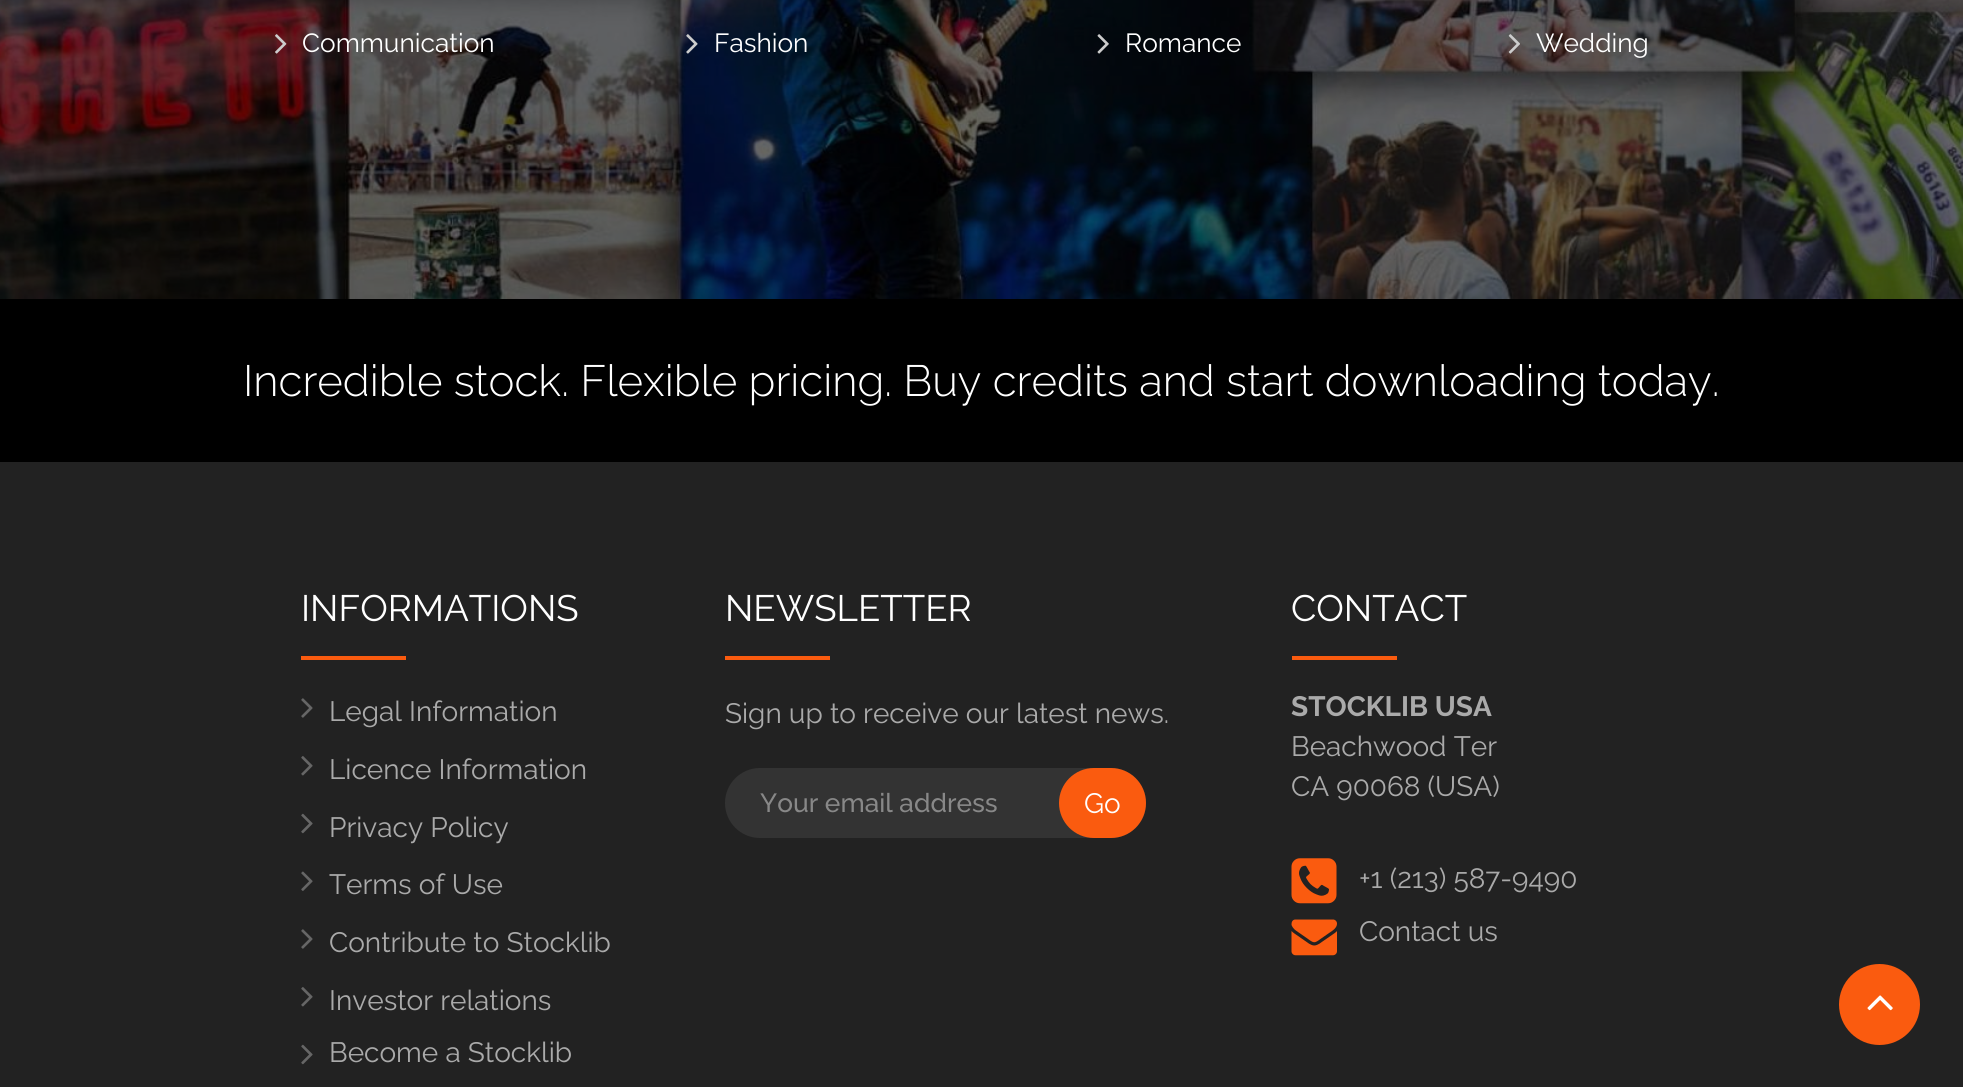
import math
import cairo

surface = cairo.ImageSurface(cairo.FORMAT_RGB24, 1963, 1087)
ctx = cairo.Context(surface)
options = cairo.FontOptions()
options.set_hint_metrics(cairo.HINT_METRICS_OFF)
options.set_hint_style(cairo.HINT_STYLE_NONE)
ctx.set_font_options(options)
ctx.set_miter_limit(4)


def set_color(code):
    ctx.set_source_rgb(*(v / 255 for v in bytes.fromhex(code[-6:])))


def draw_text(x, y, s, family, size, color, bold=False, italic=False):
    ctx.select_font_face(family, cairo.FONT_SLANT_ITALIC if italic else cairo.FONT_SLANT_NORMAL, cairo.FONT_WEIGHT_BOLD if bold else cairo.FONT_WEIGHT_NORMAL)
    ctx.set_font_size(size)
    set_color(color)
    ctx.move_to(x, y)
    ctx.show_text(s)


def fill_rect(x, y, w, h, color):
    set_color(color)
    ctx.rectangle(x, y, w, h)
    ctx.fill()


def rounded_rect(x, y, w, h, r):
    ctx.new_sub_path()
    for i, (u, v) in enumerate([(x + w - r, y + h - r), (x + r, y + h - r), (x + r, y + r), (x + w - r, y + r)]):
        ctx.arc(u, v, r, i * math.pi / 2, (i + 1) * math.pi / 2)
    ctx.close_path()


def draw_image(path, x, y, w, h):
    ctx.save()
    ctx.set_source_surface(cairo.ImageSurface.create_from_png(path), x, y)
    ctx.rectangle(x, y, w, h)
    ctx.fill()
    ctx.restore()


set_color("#000000")
ctx.paint()
draw_image("assets/img1.png", 0, 0, 1963, 299)
draw_image("assets/img2.png", 275, 34, 12, 20)
draw_text(302, 52, "Communication", "Raleway", 26.25, "#ffffff")
draw_image("assets/img3.png", 686, 34, 12, 20)
draw_text(714, 52, "Fashion", "Raleway", 26.25, "#ffffff")
draw_image("assets/img4.png", 1097, 34, 12, 20)
draw_text(1125, 52, "Romance", "Raleway", 26.25, "#ffffff")
draw_image("assets/img5.png", 1508, 34, 12, 20)
draw_text(1536, 52, "Wedding", "Raleway", 26.25, "#ffffff")
draw_text(243, 396, "Incredible stock. Flexible pricing. Buy credits and start downloading today.", "Raleway Light", 43.75, "#ffffff")
fill_rect(0, 462, 1963, 625, "#222222")
draw_text(301, 621, "INFORMATIONS", "Raleway", 36.75, "#ffffff")
fill_rect(301, 656, 105, 4, "#fa5b0f")
draw_image("assets/img6.png", 301, 698, 12, 20)
draw_text(329, 721, "Legal Information", "Raleway", 28, "#aaaaaa")
draw_image("assets/img7.png", 301, 756, 12, 20)
draw_text(329, 779, "Licence Information", "Raleway", 28, "#aaaaaa")
draw_image("assets/img8.png", 301, 813, 12, 21)
draw_text(329, 837, "Privacy Policy", "Raleway", 28, "#aaaaaa")
draw_image("assets/img9.png", 301, 871, 12, 20)
draw_text(329, 894, "Terms of Use", "Raleway", 28, "#aaaaaa")
draw_image("assets/img6.png", 301, 929, 12, 20)
draw_text(329, 952, "Contribute to Stocklib", "Raleway", 28, "#aaaaaa")
draw_image("assets/img7.png", 301, 987, 12, 20)
draw_text(329, 1010, "Investor relations", "Raleway", 28, "#aaaaaa")
draw_image("assets/img8.png", 301, 1044, 12, 21)
draw_text(329, 1062, "Become a Stocklib", "Raleway", 28, "#aaaaaa")
draw_text(725, 621, "NEWSLETTER", "Raleway", 36.75, "#ffffff")
fill_rect(725, 656, 105, 4, "#fa5b0f")
draw_text(725, 723, "Sign up to receive our latest news.", "Raleway", 28, "#aaaaaa")
set_color("#333333")
rounded_rect(725, 768, 421, 70, 35)
ctx.fill()
draw_text(760, 812, "Your email address", "Raleway Medium", 26.25, "#888888")
set_color("#fa5b0f")
rounded_rect(1059, 768, 87, 70, 35)
ctx.fill()
draw_text(1084, 813, "Go", "Raleway", 28, "#ffffff")
draw_text(1291, 621, "CONTACT", "Raleway", 36.75, "#ffffff")
fill_rect(1292, 656, 105, 4, "#fa5b0f")
draw_text(1291, 716, "STOCKLIB USA", "Raleway", 28, "#aaaaaa", bold=True)
draw_text(1291, 756, "Beachwood Ter", "Raleway", 28, "#aaaaaa")
draw_text(1291, 796, "CA 90068 (USA)", "Raleway", 28, "#aaaaaa")
draw_image("assets/img10.png", 1291, 858, 46, 46)
draw_text(1359, 888, "+1 (213) 587-9490", "Raleway", 28, "#aaaaaa")
draw_image("assets/img11.png", 1291, 919, 46, 37)
draw_text(1359, 941, "Contact us", "Raleway", 28, "#aaaaaa")
set_color("#fa5b0f")
ctx.new_path()
ctx.arc(1879.5, 1004.5, 40.5, 0, 2 * math.pi)
ctx.fill()
draw_image("assets/img12.png", 1867, 995, 26, 16)
surface.write_to_png("output.png")
